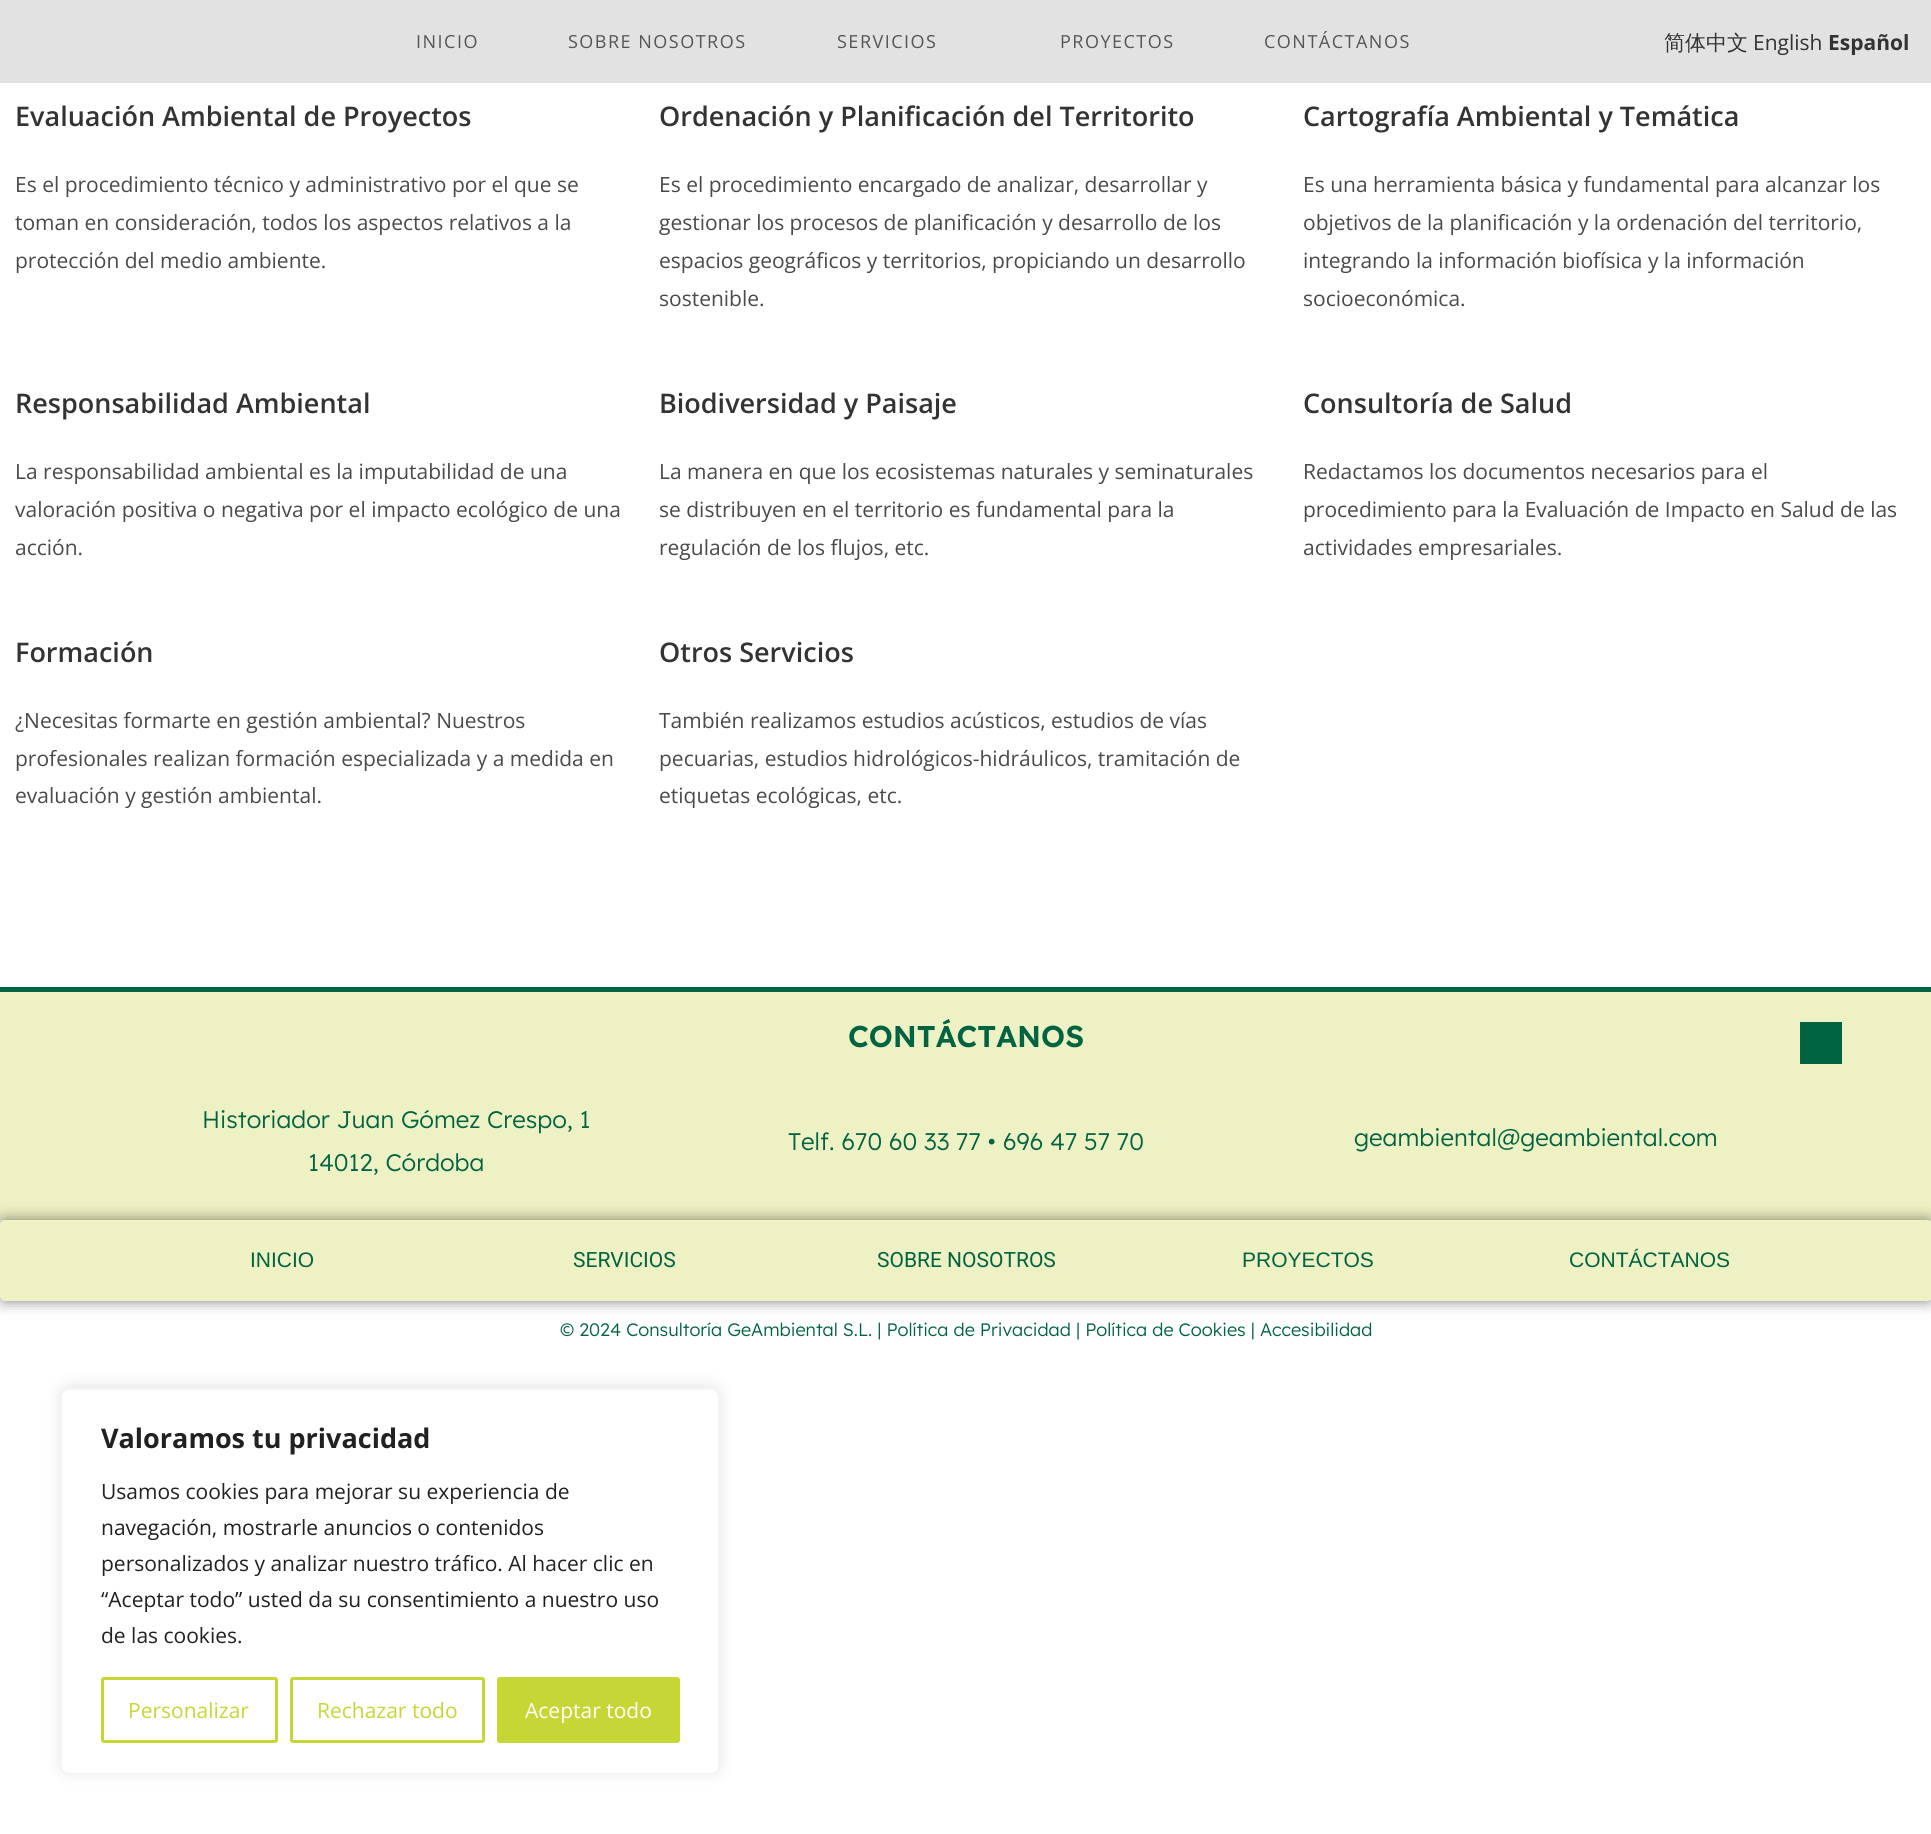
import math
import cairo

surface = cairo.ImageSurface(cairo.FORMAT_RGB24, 1931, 1834)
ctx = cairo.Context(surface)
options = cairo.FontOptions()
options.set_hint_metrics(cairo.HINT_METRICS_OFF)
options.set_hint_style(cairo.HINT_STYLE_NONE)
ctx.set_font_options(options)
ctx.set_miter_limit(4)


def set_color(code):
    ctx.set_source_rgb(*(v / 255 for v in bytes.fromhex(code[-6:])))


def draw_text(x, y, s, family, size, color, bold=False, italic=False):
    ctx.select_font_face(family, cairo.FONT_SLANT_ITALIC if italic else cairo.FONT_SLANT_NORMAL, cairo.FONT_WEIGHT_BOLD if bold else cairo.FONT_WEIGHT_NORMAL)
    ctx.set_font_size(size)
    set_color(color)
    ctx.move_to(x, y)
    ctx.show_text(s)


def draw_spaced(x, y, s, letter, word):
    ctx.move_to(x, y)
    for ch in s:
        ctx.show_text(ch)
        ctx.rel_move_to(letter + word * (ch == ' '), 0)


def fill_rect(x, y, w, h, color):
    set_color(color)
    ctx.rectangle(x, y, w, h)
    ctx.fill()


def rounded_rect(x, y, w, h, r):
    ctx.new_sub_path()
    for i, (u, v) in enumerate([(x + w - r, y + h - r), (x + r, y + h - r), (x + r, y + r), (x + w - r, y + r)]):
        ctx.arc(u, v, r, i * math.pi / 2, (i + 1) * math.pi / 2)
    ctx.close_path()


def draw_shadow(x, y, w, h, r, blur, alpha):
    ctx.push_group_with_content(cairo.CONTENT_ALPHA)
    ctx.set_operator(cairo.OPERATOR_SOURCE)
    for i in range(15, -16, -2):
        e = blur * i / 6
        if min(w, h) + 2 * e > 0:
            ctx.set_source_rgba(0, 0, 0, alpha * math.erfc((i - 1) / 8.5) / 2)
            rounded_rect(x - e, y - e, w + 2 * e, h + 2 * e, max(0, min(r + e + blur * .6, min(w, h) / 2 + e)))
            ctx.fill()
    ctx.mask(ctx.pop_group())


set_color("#ffffff")
ctx.paint()
fill_rect(0, 0, 1931, 83, "#e2e2e2")
ctx.select_font_face("Open Sans")
ctx.set_font_size(18)
set_color("#555555")
draw_spaced(416, 48, "INICIO", 1.5, 0)
draw_spaced(568, 48, "SOBRE NOSOTROS", 1.5, 0)
draw_spaced(837, 48, "SERVICIOS", 1.5, 0)
draw_spaced(1060, 48, "PROYECTOS", 1.5, 0)
draw_spaced(1264, 48, "CONTÁCTANOS", 1.5, 0)
draw_text(15, 126, "Evaluación Ambiental de Proyectos", "Open Sans SemiBold", 27, "#333333")
draw_text(15, 192, "Es el procedimiento técnico y administrativo por el que se", "Open Sans", 21, "#4a4a4a")
draw_text(15, 230, "toman en consideración, todos los aspectos relativos a la", "Open Sans", 21, "#4a4a4a")
draw_text(15, 268, "protección del medio ambiente.", "Open Sans", 21, "#4a4a4a")
draw_text(659, 126, "Ordenación y Planificación del Territorito", "Open Sans SemiBold", 27, "#333333")
draw_text(659, 192, "Es el procedimiento encargado de analizar, desarrollar y", "Open Sans", 21, "#4a4a4a")
draw_text(659, 230, "gestionar los procesos de planificación y desarrollo de los", "Open Sans", 21, "#4a4a4a")
draw_text(659, 268, "espacios geográficos y territorios, propiciando un desarrollo", "Open Sans", 21, "#4a4a4a")
draw_text(659, 306, "sostenible.", "Open Sans", 21, "#4a4a4a")
draw_text(1303, 126, "Cartografía Ambiental y Temática", "Open Sans SemiBold", 27, "#333333")
draw_text(1303, 192, "Es una herramienta básica y fundamental para alcanzar los", "Open Sans", 21, "#4a4a4a")
draw_text(1303, 230, "objetivos de la planificación y la ordenación del territorio,", "Open Sans", 21, "#4a4a4a")
draw_text(1303, 268, "integrando la información biofísica y la información", "Open Sans", 21, "#4a4a4a")
draw_text(1303, 306, "socioeconómica.", "Open Sans", 21, "#4a4a4a")
draw_text(15, 413, "Responsabilidad Ambiental", "Open Sans SemiBold", 27, "#333333")
draw_text(15, 479, "La responsabilidad ambiental es la imputabilidad de una", "Open Sans", 21, "#4a4a4a")
draw_text(15, 517, "valoración positiva o negativa por el impacto ecológico de una", "Open Sans", 21, "#4a4a4a")
draw_text(15, 555, "acción.", "Open Sans", 21, "#4a4a4a")
draw_text(659, 413, "Biodiversidad y Paisaje", "Open Sans SemiBold", 27, "#333333")
draw_text(659, 479, "La manera en que los ecosistemas naturales y seminaturales", "Open Sans", 21, "#4a4a4a")
draw_text(659, 517, "se distribuyen en el territorio es fundamental para la", "Open Sans", 21, "#4a4a4a")
draw_text(659, 555, "regulación de los flujos, etc.", "Open Sans", 21, "#4a4a4a")
draw_text(1303, 413, "Consultoría de Salud", "Open Sans SemiBold", 27, "#333333")
draw_text(1303, 479, "Redactamos los documentos necesarios para el", "Open Sans", 21, "#4a4a4a")
draw_text(1303, 517, "procedimiento para la Evaluación de Impacto en Salud de las", "Open Sans", 21, "#4a4a4a")
draw_text(1303, 555, "actividades empresariales.", "Open Sans", 21, "#4a4a4a")
draw_text(15, 662, "Formación", "Open Sans SemiBold", 27, "#333333")
draw_text(15, 728, "¿Necesitas formarte en gestión ambiental? Nuestros", "Open Sans", 21, "#4a4a4a")
draw_text(15, 766, "profesionales realizan formación especializada y a medida en", "Open Sans", 21, "#4a4a4a")
draw_text(15, 803, "evaluación y gestión ambiental.", "Open Sans", 21, "#4a4a4a")
draw_text(659, 662, "Otros Servicios", "Open Sans SemiBold", 27, "#333333")
draw_text(659, 728, "También realizamos estudios acústicos, estudios de vías", "Open Sans", 21, "#4a4a4a")
draw_text(659, 766, "pecuarias, estudios hidrológicos-hidráulicos, tramitación de", "Open Sans", 21, "#4a4a4a")
draw_text(659, 803, "etiquetas ecológicas, etc.", "Open Sans", 21, "#4a4a4a")
fill_rect(0, 992, 1931, 228, "#eef1c3")
fill_rect(0, 987, 1931, 5, "#006341")
draw_text(848, 1047, "CONTÁCTANOS", "Lexend SemiBold", 30, "#006341")
fill_rect(1800, 1022, 42, 42, "#006341")
draw_text(202, 1128, "Historiador Juan Gómez Crespo, 1", "Lexend Light", 24, "#006341")
draw_text(308, 1171, "14012, Córdoba", "Lexend Light", 24, "#006341")
draw_text(788, 1150, "Telf. 670 60 33 77 • 696 47 57 70", "Lexend Light", 24, "#006341")
draw_text(1354, 1146, "geambiental@geambiental.com", "Lexend Light", 24, "#006341")
set_color("#000000")
draw_shadow(0, 1220, 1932, 81, 5, 7.5, 0.5)
set_color("#eef1c3")
rounded_rect(0, 1220, 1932, 81, 5)
ctx.fill()
draw_text(250, 1267, "INICIO", "Liberation Sans", 21, "#006341")
draw_text(573, 1267, "SERVICIOS", "Roboto", 21, "#006341")
draw_text(877, 1267, "SOBRE NOSOTROS", "Roboto", 21, "#006341")
draw_text(1242, 1267, "PROYECTOS", "Liberation Sans", 21, "#006341")
draw_text(1569, 1267, "CONTÁCTANOS", "Liberation Sans", 21, "#006341")
draw_text(560, 1336, "© 2024 Consultoría GeAmbiental S.L. | Política de Privacidad | Política de Cookies | Accesibilidad", "Lexend Light", 18, "#006341")
draw_text(1664, 50, "简体中文", "WenQuanYi Zen Hei Medium", 21, "#333333")
draw_text(1753, 50, "English", "Open Sans", 21, "#333333")
draw_text(1828, 50, "Español", "Open Sans", 21, "#333333", bold=True)
set_color("#acabab")
draw_shadow(60, 1386, 660, 387, 9, 7.5, 0.3)
set_color("#ffffff")
rounded_rect(61, 1389, 658, 385, 8)
ctx.fill_preserve()
set_color("#f4f4f4")
ctx.stroke()
draw_text(101, 1448, "Valoramos tu privacidad", "Open Sans", 27, "#212121", bold=True)
draw_text(101, 1499, "Usamos cookies para mejorar su experiencia de", "Open Sans", 21, "#212121")
draw_text(101, 1535, "navegación, mostrarle anuncios o contenidos", "Open Sans", 21, "#212121")
draw_text(101, 1571, "personalizados y analizar nuestro tráfico. Al hacer clic en", "Open Sans", 21, "#212121")
draw_text(101, 1607, "“Aceptar todo” usted da su consentimiento a nuestro uso", "Open Sans", 21, "#212121")
draw_text(101, 1643, "de las cookies.", "Open Sans", 21, "#212121")
rounded_rect(102.5, 1678.5, 174, 63, 1.5)
set_color("#c6d634")
ctx.set_line_width(3)
ctx.stroke()
draw_text(128, 1718, "Personalizar", "Open Sans", 21, "#c6d634")
rounded_rect(291.5, 1678.5, 192, 63, 1.5)
ctx.stroke()
draw_text(317, 1718, "Rechazar todo", "Open Sans", 21, "#c6d634")
rounded_rect(498.5, 1678.5, 180, 63, 1.5)
ctx.fill_preserve()
ctx.stroke()
draw_text(525, 1718, "Aceptar todo", "Open Sans", 21, "#ffffff")
surface.write_to_png("output.png")
